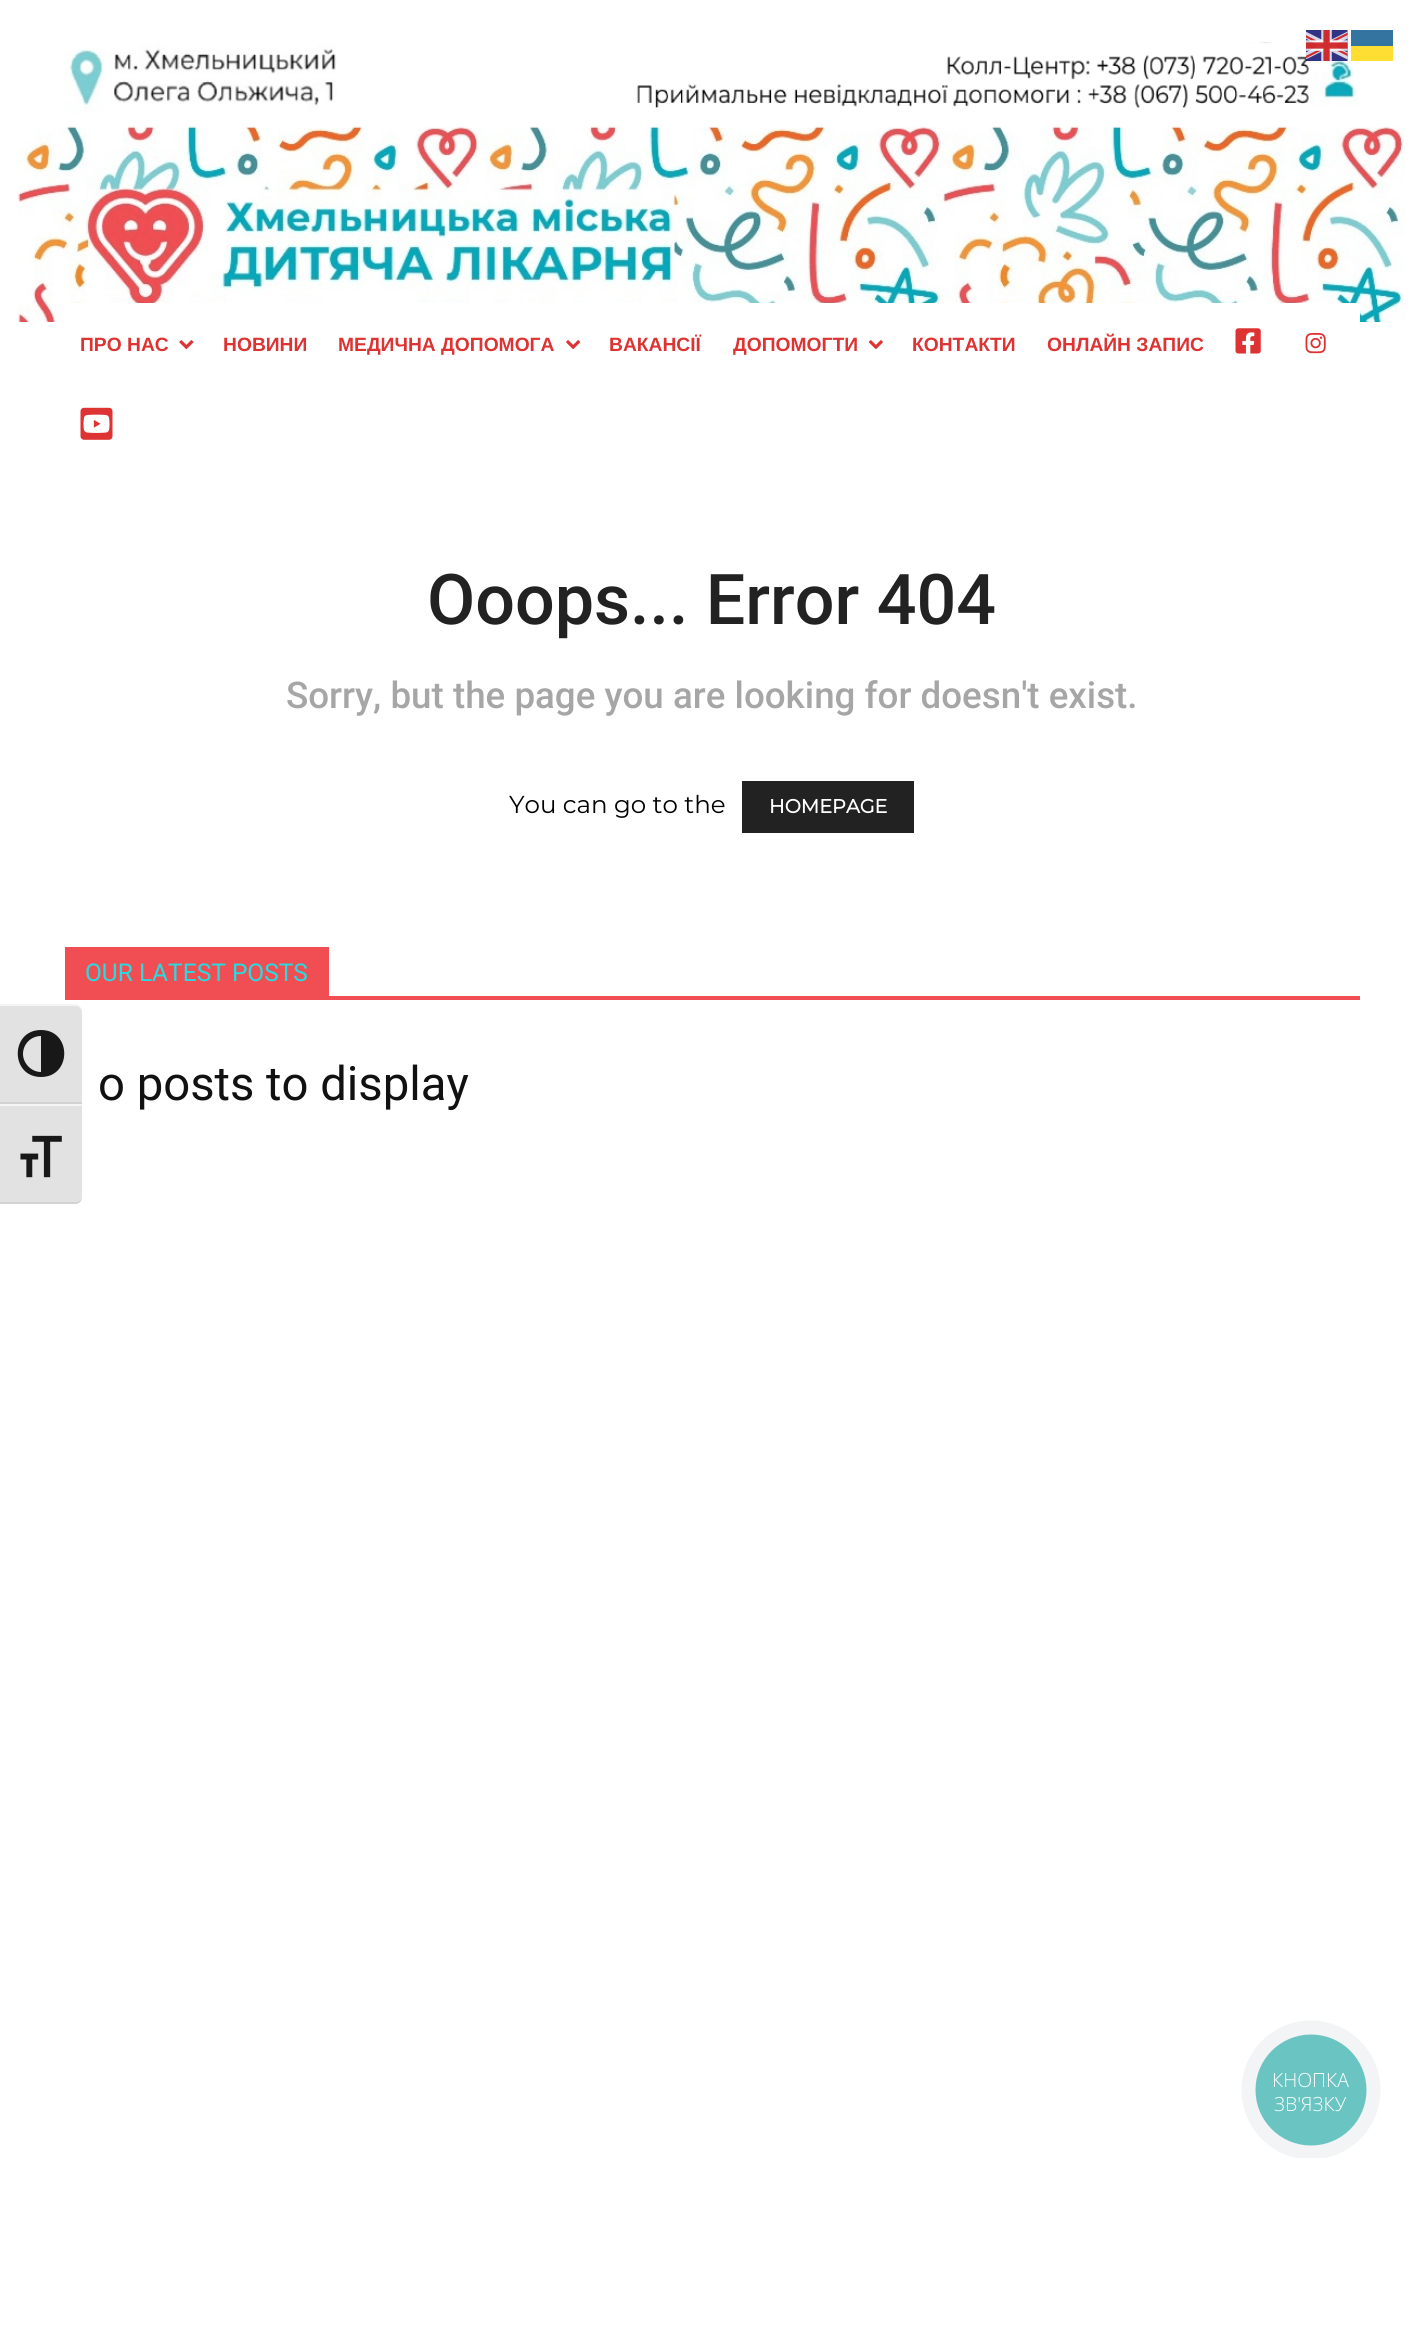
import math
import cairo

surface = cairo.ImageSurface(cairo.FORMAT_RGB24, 1422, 2336)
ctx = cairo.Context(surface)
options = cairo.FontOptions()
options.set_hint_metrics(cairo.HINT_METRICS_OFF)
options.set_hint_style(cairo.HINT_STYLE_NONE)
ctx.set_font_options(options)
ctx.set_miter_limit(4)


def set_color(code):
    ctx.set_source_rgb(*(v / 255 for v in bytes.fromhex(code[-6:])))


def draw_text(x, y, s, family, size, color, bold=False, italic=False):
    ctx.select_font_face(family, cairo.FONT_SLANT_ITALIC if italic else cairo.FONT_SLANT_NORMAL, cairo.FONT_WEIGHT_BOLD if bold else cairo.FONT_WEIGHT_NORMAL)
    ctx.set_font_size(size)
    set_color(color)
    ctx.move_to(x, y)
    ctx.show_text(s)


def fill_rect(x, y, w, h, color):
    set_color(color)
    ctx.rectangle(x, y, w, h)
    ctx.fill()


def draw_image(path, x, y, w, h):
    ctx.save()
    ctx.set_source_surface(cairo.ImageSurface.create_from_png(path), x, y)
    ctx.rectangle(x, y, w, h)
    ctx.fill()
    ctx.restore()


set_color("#ffffff")
ctx.paint()
draw_image("assets/img3.png", 17, 42, 1388, 280)
draw_image("assets/img1.png", 1306, 30, 42, 31)
ctx.set_source_rgba(1, 0.835, 0, 0.8)
ctx.rectangle(1351, 30, 42, 31)
ctx.fill()
ctx.set_source_rgba(0, 0.357, 0.733, 0.8)
ctx.rectangle(1351, 30, 42, 16)
ctx.fill()
set_color("#e2e2e2")
ctx.new_path()
ctx.move_to(0, 1005)
ctx.line_to(75, 1005)
ctx.curve_to(79, 1005, 82, 1008, 82, 1012)
ctx.line_to(82, 1104)
ctx.line_to(0, 1104)
ctx.close_path()
ctx.fill()
set_color("#f5f5f5")
ctx.new_path()
ctx.move_to(0, 1006)
ctx.line_to(75, 1006)
ctx.curve_to(79, 1006, 82, 1009, 82, 1012)
ctx.curve_to(82, 1009, 80, 1006, 77, 1004)
ctx.line_to(0, 1004)
ctx.close_path()
ctx.fill()
fill_rect(0, 1102, 82, 2, "#d2d2d2")
set_color("#181818")
ctx.new_path()
ctx.move_to(41, 1030)
ctx.curve_to(10, 1030, 10, 1077, 41, 1077)
ctx.curve_to(72, 1077, 72, 1030, 41, 1030)
ctx.close_path()
ctx.move_to(23, 1054)
ctx.curve_to(23, 1044, 31, 1036, 41, 1036)
ctx.line_to(41, 1072)
ctx.curve_to(31, 1072, 23, 1063, 23, 1054)
ctx.close_path()
ctx.fill()
set_color("#e2e2e2")
ctx.new_path()
ctx.move_to(0, 1104)
ctx.line_to(82, 1104)
ctx.line_to(82, 1197)
ctx.curve_to(82, 1201, 79, 1204, 75, 1204)
ctx.line_to(0, 1204)
ctx.close_path()
ctx.fill()
fill_rect(0, 1104, 82, 2, "#f5f5f5")
set_color("#d2d2d2")
ctx.new_path()
ctx.move_to(75, 1204)
ctx.curve_to(79, 1204, 82, 1201, 82, 1197)
ctx.curve_to(82, 1200, 79, 1202, 75, 1202)
ctx.line_to(0, 1202)
ctx.line_to(0, 1204)
ctx.close_path()
ctx.fill()
draw_image("assets/img2.png", 20, 1135, 42, 43)
fill_rect(65, 303, 1295, 19, "#ffffff")
draw_text(80, 351, "ПРО НАС", "Liberation Sans", 19.25, "#dd3333", bold=True)
draw_image("assets/img4.png", 179, 340, 15, 10)
draw_text(223, 351, "НОВИНИ", "Liberation Sans", 19.25, "#dd3333", bold=True)
draw_text(338, 351, "МЕДИЧНА ДОПОМОГА", "Liberation Sans", 19.25, "#dd3333", bold=True)
draw_image("assets/img5.png", 566, 340, 15, 10)
draw_text(609, 351, "ВАКАНСІЇ", "Liberation Sans", 19.25, "#dd3333", bold=True)
draw_text(733, 351, "ДОПОМОГТИ", "Liberation Sans", 19.25, "#dd3333", bold=True)
draw_image("assets/img6.png", 868, 340, 15, 10)
draw_text(912, 351, "КОНТАКТИ", "Liberation Sans", 19.25, "#dd3333", bold=True)
draw_text(1047, 351, "ОНЛАЙН ЗАПИС", "Liberation Sans", 19.25, "#dd3333", bold=True)
draw_image("assets/img7.png", 1235, 328, 26, 26)
draw_image("assets/img8.png", 1305, 332, 21, 22)
draw_image("assets/img9.png", 80, 407, 33, 33)
draw_text(427, 624, "Ooops... Error 404", "Roboto Medium", 70, "#222222")
draw_text(286, 708, "Sorry, but the page you are looking for doesn't exist.", "Roboto Medium", 36.75, "#a6a6a6")
draw_text(509, 813, "You can go to the", "Montserrat Thin", 24.5, "#000000")
fill_rect(742, 781, 172, 52, "#222222")
draw_text(769, 813, "HOMEPAGE", "Montserrat", 19.25, "#ffffff", bold=True)
fill_rect(65, 996, 1295, 4, "#f04e53")
fill_rect(65, 947, 264, 49, "#f04e53")
draw_text(85, 981, "OUR LATEST POSTS", "Roboto", 24.5, "#24dce2")
draw_text(98, 1100, "o posts to display", "Roboto", 47.25, "#111111")
ctx.save()
ctx.rectangle(1241, 2020, 140, 138)
ctx.clip()
set_color("#f2f4f5")
ctx.arc(1311, 2090, 69.5, 0, 2 * math.pi)
ctx.fill()
ctx.restore()
set_color("#6ac4c1")
ctx.arc(1311, 2090, 55.5, 0, 2 * math.pi)
ctx.fill()
draw_text(1272, 2087, "КНОПКА", "Open Sans Light", 19.5, "#ffffff")
draw_text(1274, 2111, "ЗВ'ЯЗКУ", "Open Sans Light", 19.5, "#ffffff")
surface.write_to_png("output.png")
